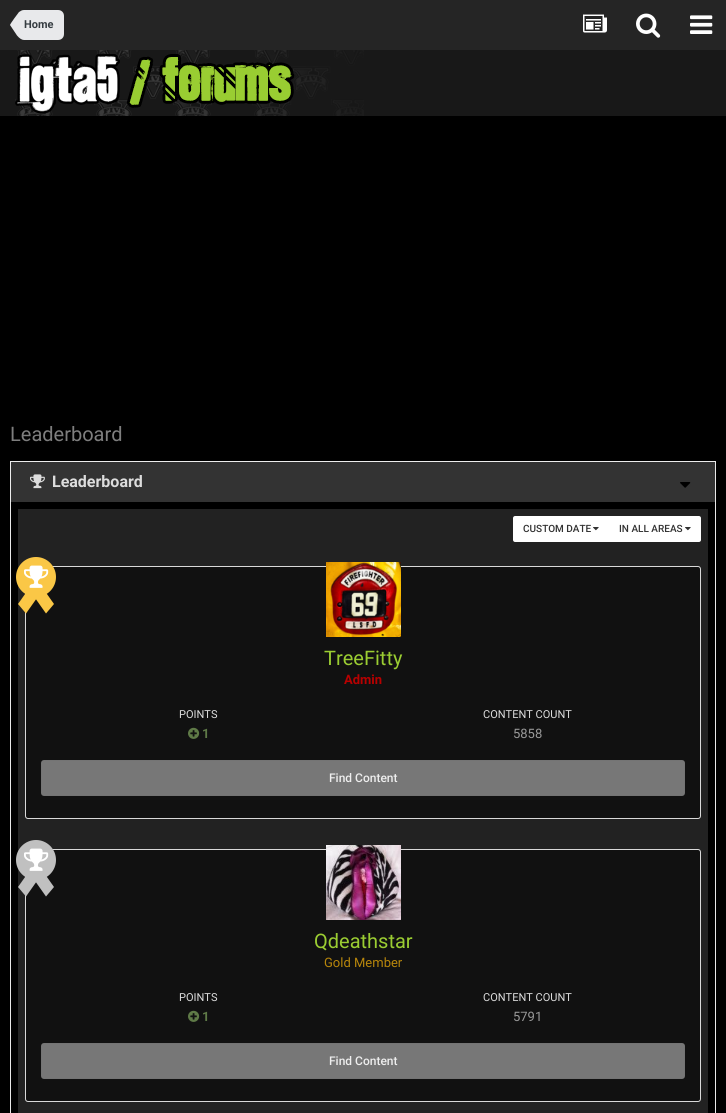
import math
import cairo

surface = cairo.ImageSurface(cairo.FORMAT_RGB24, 726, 1113)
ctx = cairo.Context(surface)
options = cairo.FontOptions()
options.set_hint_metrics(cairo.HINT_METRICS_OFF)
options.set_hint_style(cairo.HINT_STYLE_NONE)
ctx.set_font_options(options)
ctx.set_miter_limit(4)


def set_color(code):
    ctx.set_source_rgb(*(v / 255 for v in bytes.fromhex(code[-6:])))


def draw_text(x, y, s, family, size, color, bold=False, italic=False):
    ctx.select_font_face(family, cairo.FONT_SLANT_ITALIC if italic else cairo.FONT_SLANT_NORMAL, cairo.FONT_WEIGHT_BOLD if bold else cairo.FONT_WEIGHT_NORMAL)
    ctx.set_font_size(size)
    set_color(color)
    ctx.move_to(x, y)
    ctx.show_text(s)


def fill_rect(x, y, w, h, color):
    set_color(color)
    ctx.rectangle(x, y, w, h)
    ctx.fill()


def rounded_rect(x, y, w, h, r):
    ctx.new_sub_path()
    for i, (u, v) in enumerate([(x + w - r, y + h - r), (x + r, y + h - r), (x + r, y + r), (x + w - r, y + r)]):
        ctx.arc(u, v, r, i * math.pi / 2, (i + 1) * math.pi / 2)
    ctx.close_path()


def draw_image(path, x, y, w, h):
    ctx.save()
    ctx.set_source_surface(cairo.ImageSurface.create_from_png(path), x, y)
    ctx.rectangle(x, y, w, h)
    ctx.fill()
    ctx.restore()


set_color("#000000")
ctx.paint()
fill_rect(0, 0, 726, 50, "#252525")
set_color("#e8e9eb")
ctx.new_path()
ctx.move_to(24, 10)
ctx.line_to(58, 10)
ctx.curve_to(61.5, 10, 64, 12.5, 64, 16)
ctx.line_to(64, 34)
ctx.curve_to(64, 37.5, 61.5, 40, 58, 40)
ctx.line_to(24, 40)
ctx.close_path()
ctx.fill()
ctx.new_path()
ctx.move_to(24, 25)
ctx.line_to(24, 40)
ctx.curve_to(22, 40, 19.5, 38.5, 17, 35.5)
ctx.line_to(10, 25)
ctx.close_path()
ctx.move_to(24, 25)
ctx.line_to(10, 25)
ctx.curve_to(10, 24, 18.5, 12.5, 19, 12)
ctx.curve_to(20.5, 11, 22, 10, 24, 10)
ctx.close_path()
ctx.fill()
draw_text(24, 28, "Home", "Roboto", 11, "#353c41", bold=True)
draw_image("assets/img1.png", 583, 14, 24, 19)
draw_image("assets/img2.png", 636, 13, 25, 25)
draw_image("assets/img3.png", 690, 15, 23, 19)
fill_rect(0, 50, 726, 66, "#181818")
draw_image("assets/img4.png", 15, 50, 349, 66)
draw_text(10, 441, "Leaderboard", "Roboto", 20, "#7e7e7e")
fill_rect(11, 462, 704, 40, "#333333")
fill_rect(10, 461, 706, 1, "#ededed")
fill_rect(715, 461, 1, 41, "#e8e8e8")
fill_rect(10, 461, 1, 41, "#ededed")
draw_image("assets/img5.png", 30, 474, 15, 15)
draw_text(52, 487, "Leaderboard", "Roboto", 16, "#dddddd", bold=True)
draw_image("assets/img6.png", 680, 482, 11, 6)
fill_rect(715, 502, 1, 611, "#e8e8e8")
fill_rect(10, 502, 1, 611, "#e8e8e8")
fill_rect(18, 509, 690, 604, "#222222")
set_color("#ffffff")
ctx.new_path()
ctx.move_to(515, 516)
ctx.line_to(609, 516)
ctx.line_to(609, 542)
ctx.line_to(515, 542)
ctx.curve_to(514, 542, 513, 541, 513, 540)
ctx.line_to(513, 518)
ctx.curve_to(513, 517, 514, 516, 515, 516)
ctx.close_path()
ctx.fill()
draw_text(523, 532, "CUSTOM DATE", "Roboto Medium", 10, "#323232")
draw_image("assets/img7.png", 593, 527, 6, 4)
set_color("#ffffff")
ctx.new_path()
ctx.move_to(609, 516)
ctx.line_to(699, 516)
ctx.curve_to(700, 516, 701, 517, 701, 518)
ctx.line_to(701, 540)
ctx.curve_to(701, 541, 700, 542, 699, 542)
ctx.line_to(609, 542)
ctx.close_path()
ctx.fill()
draw_text(619, 532, "IN ALL AREAS", "Roboto Medium", 10, "#323232")
draw_image("assets/img7.png", 685, 527, 6, 4)
set_color("#111111")
rounded_rect(25.5, 566.5, 675, 252, 2.5)
ctx.fill_preserve()
set_color("#d9d9d9")
ctx.set_line_width(1)
ctx.stroke()
set_color("#fac746")
ctx.arc(36, 577, 20, 0, 2 * math.pi)
ctx.fill()
ctx.new_path()
ctx.move_to(36, 578.5)
ctx.line_to(44, 588)
ctx.line_to(26, 613.5)
ctx.line_to(18, 604)
ctx.close_path()
ctx.fill()
ctx.new_path()
ctx.move_to(28, 588)
ctx.line_to(36, 578.5)
ctx.line_to(54, 604)
ctx.line_to(46, 613.5)
ctx.close_path()
ctx.fill()
draw_image("assets/img8.png", 24, 565, 25, 23)
draw_image("assets/img9.png", 326, 562, 75, 75)
draw_text(324, 665, "TreeFitty", "Roboto", 20, "#9bcd32")
draw_text(344, 684, "Admin", "Roboto", 13, "#b80000", bold=True)
draw_text(179, 718, "POINTS", "Roboto", 11, "#dddddd")
draw_image("assets/img10.png", 188, 727, 12, 12)
draw_text(202, 738, "1", "Roboto", 13, "#5f7a47", bold=True)
draw_text(483, 718, "CONTENT COUNT", "Roboto", 11, "#dddddd")
draw_text(513, 738, "5858", "Roboto", 13, "#999999")
set_color("#777777")
rounded_rect(41, 760, 644, 36, 3)
ctx.fill()
ctx.rectangle(41.5, 760.5, 643, 35)
ctx.set_source_rgba(0, 0, 0, 0.03)
ctx.stroke()
draw_text(329, 782, "Find Content", "Roboto Medium", 12, "#eeeeee")
set_color("#111111")
rounded_rect(25.5, 849.5, 675, 252, 2.5)
ctx.fill_preserve()
set_color("#d9d9d9")
ctx.stroke()
set_color("#c0c0c0")
ctx.arc(36, 860, 20, 0, 2 * math.pi)
ctx.fill()
ctx.new_path()
ctx.move_to(36, 861.5)
ctx.line_to(44, 871)
ctx.line_to(26, 896.5)
ctx.line_to(18, 887)
ctx.close_path()
ctx.fill()
ctx.new_path()
ctx.move_to(28, 871)
ctx.line_to(36, 861.5)
ctx.line_to(54, 887)
ctx.line_to(46, 896.5)
ctx.close_path()
ctx.fill()
draw_image("assets/img11.png", 24, 848, 25, 23)
draw_image("assets/img12.png", 326, 845, 75, 75)
draw_text(314, 948, "Qdeathstar", "Roboto", 20, "#9bcd32")
draw_text(324, 967, "Gold Member", "Roboto", 13, "#b8860b")
draw_text(179, 1001, "POINTS", "Roboto", 11, "#dddddd")
draw_image("assets/img10.png", 188, 1010, 12, 12)
draw_text(202, 1021, "1", "Roboto", 13, "#5f7a47", bold=True)
draw_text(483, 1001, "CONTENT COUNT", "Roboto", 11, "#dddddd")
draw_text(513, 1021, "5791", "Roboto", 13, "#999999")
set_color("#777777")
rounded_rect(41, 1043, 644, 36, 3)
ctx.fill()
ctx.rectangle(41.5, 1043.5, 643, 35)
ctx.set_source_rgba(0, 0, 0, 0.03)
ctx.stroke()
draw_text(329, 1065, "Find Content", "Roboto Medium", 12, "#eeeeee")
surface.write_to_png("output.png")
